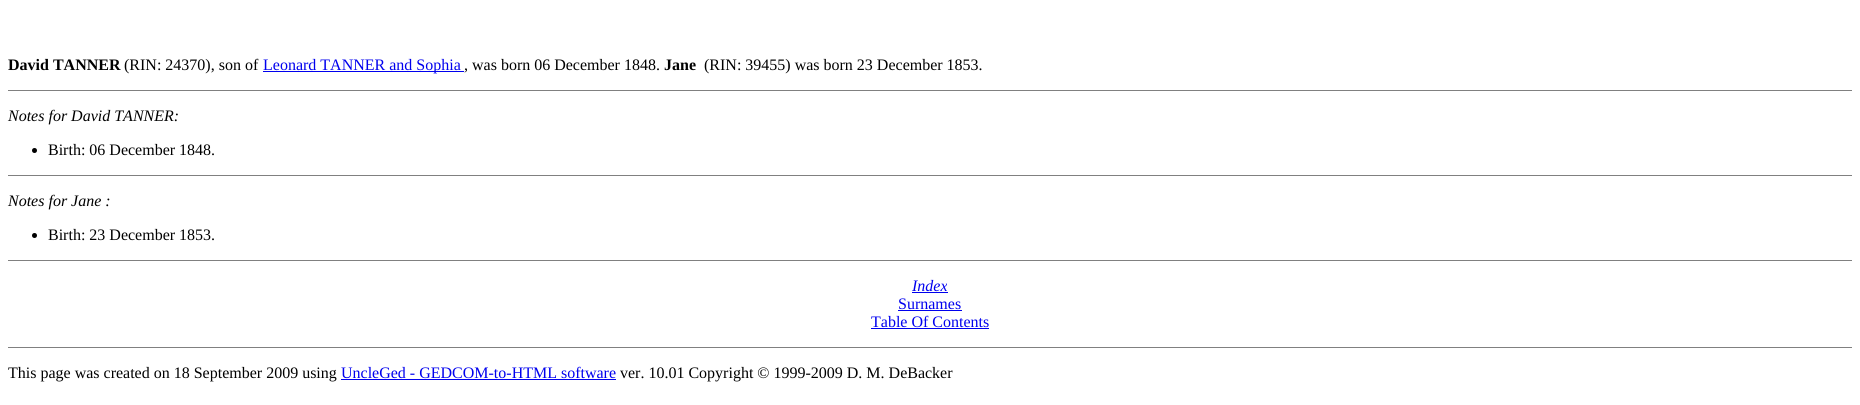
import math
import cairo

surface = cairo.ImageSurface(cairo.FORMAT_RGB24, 1860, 405)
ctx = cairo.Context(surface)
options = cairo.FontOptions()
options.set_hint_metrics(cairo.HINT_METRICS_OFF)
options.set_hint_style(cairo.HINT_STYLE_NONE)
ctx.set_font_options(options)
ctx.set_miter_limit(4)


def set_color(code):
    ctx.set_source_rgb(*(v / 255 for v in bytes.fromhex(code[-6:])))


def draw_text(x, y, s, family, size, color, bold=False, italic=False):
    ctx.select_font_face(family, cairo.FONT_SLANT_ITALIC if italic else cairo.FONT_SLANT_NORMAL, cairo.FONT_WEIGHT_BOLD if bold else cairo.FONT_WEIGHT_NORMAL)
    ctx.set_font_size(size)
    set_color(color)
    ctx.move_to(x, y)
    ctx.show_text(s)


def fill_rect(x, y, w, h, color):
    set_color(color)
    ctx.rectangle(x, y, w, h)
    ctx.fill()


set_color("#ffffff")
ctx.paint()
draw_text(8, 70, "David TANNER", "Liberation Serif", 16, "#000000", bold=True)
draw_text(124, 70, "(RIN: 24370), son of", "Liberation Serif", 16, "#000000")
fill_rect(263, 71, 201, 1, "#0000ee")
draw_text(263, 70, "Leonard TANNER and Sophia", "Liberation Serif", 16, "#0000ee")
draw_text(464, 70, ", was born 06 December 1848.", "Liberation Serif", 16, "#000000")
draw_text(664, 70, "Jane", "Liberation Serif", 16, "#000000", bold=True)
draw_text(704, 70, "(RIN: 39455) was born 23 December 1853.", "Liberation Serif", 16, "#000000")
fill_rect(8, 90, 1844, 1, "#808080")
draw_text(8, 121, "Notes for David TANNER:", "Liberation Serif", 16, "#000000", italic=True)
ctx.new_path()
ctx.arc(34.5, 150.5, 2.5, 0, 2 * math.pi)
ctx.fill()
draw_text(48, 155, "Birth: 06 December 1848.", "Liberation Serif", 16, "#000000")
fill_rect(8, 175, 1844, 1, "#808080")
draw_text(8, 206, "Notes for Jane :", "Liberation Serif", 16, "#000000", italic=True)
ctx.new_path()
ctx.arc(34.5, 235.5, 2.5, 0, 2 * math.pi)
ctx.fill()
draw_text(48, 240, "Birth: 23 December 1853.", "Liberation Serif", 16, "#000000")
fill_rect(8, 260, 1844, 1, "#808080")
draw_text(912, 291, "Index", "Liberation Serif", 16, "#0000ee", italic=True)
fill_rect(912, 292, 36, 1, "#0000ee")
draw_text(898, 309, "Surnames", "Liberation Serif", 16, "#0000ee")
fill_rect(898, 310, 64, 1, "#0000ee")
draw_text(871, 327, "Table Of Contents", "Liberation Serif", 16, "#0000ee")
fill_rect(871, 328, 118, 1, "#0000ee")
fill_rect(8, 347, 1844, 1, "#808080")
draw_text(8, 378, "This page was created on 18 September 2009 using", "Liberation Serif", 16, "#000000")
draw_text(341, 378, "UncleGed - GEDCOM-to-HTML software", "Liberation Serif", 16, "#0000ee")
fill_rect(341, 379, 275, 1, "#0000ee")
draw_text(620, 378, "ver. 10.01 Copyright © 1999-2009 D. M. DeBacker", "Liberation Serif", 16, "#000000")
surface.write_to_png("output.png")
